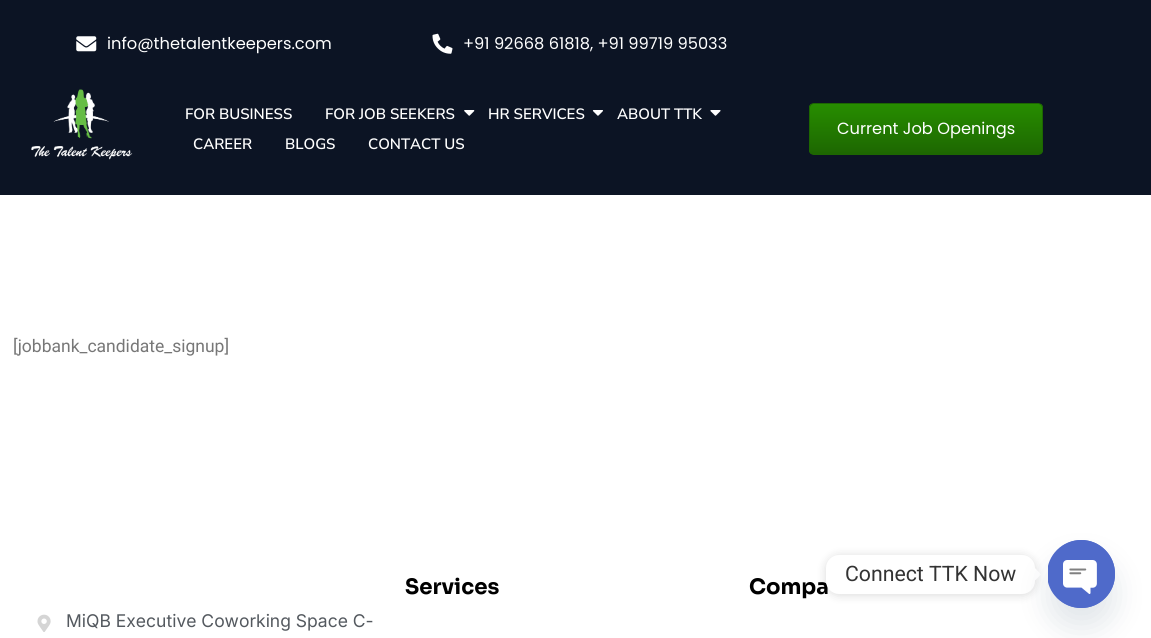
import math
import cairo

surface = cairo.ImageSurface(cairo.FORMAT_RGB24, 1151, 638)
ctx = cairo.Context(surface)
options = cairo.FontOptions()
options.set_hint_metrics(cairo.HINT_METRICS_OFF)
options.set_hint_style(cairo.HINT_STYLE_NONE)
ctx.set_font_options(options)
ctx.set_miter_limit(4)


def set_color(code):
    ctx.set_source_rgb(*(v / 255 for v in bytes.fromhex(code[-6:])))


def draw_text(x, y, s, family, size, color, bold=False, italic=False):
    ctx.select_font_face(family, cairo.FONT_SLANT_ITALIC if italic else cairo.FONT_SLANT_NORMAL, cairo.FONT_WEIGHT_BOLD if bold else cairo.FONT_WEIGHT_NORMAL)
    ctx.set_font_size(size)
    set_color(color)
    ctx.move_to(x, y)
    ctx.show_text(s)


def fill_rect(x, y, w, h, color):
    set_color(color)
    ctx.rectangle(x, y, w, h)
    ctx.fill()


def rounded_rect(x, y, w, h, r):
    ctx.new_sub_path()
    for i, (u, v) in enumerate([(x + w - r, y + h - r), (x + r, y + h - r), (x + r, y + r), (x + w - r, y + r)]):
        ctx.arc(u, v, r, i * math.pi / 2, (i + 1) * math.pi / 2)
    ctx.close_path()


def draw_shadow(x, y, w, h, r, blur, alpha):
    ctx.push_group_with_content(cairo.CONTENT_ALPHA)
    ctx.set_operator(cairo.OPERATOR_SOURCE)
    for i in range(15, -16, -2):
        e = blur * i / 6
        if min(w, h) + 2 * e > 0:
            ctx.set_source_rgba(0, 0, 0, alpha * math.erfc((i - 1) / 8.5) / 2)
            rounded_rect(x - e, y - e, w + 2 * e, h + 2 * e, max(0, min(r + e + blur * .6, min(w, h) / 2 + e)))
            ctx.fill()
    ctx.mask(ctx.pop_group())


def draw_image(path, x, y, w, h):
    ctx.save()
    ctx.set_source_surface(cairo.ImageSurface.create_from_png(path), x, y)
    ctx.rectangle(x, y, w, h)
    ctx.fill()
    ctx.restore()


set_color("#ffffff")
ctx.paint()
fill_rect(0, 0, 1151, 195, "#0c1424")
draw_image("assets/img1.png", 76, 36, 21, 16)
draw_text(107, 49, "info@thetalentkeepers.com", "Poppins", 16.25, "#ffffff")
draw_image("assets/img2.png", 432, 33, 21, 21)
draw_text(463, 49, "+91 92668 61818, +91 99719 95033", "Poppins", 16.25, "#ffffff")
draw_image("assets/img3.png", 31, 89, 102, 71)
draw_text(185, 119, "FOR BUSINESS", "Nunito Sans SemiBold", 15, "#ffffff")
draw_text(325, 119, "FOR JOB SEEKERS", "Nunito Sans SemiBold", 15, "#ffffff")
draw_image("assets/img4.png", 464, 110, 11, 6)
draw_text(488, 119, "HR SERVICES", "Nunito Sans SemiBold", 15, "#ffffff")
draw_image("assets/img5.png", 592, 110, 11, 6)
draw_text(617, 119, "ABOUT TTK", "Nunito Sans SemiBold", 15, "#ffffff")
draw_image("assets/img6.png", 710, 110, 11, 6)
draw_text(193, 149, "CAREER", "Nunito Sans SemiBold", 15, "#ffffff")
draw_text(285, 149, "BLOGS", "Nunito Sans SemiBold", 15, "#ffffff")
draw_text(368, 149, "CONTACT US", "Nunito Sans SemiBold", 15, "#ffffff")
ctx.save()
rounded_rect(809, 103, 234, 52, 5)
ctx.clip()
gradient = cairo.LinearGradient(926, 104, 926, 154)
gradient.add_color_stop_rgba(0, 0.153, 0.553, 0, 1)
gradient.add_color_stop_rgba(1, 0.114, 0.404, 0.004, 1)
ctx.set_source(gradient)
ctx.rectangle(809, 104, 234, 50)
ctx.fill()
ctx.restore()
rounded_rect(809.5, 103.5, 233, 51, 4.5)
set_color("#1d6701")
ctx.set_line_width(1)
ctx.stroke()
draw_text(837, 134, "Current Job Openings", "Poppins", 16.25, "#ffffff")
draw_text(13, 352, "[jobbank_candidate_signup]", "Roboto", 17.5, "#777777")
set_color("#000000")
draw_shadow(826, 556, 209, 39, 13, 5, 0.15)
draw_text(749, 594, "Compa", "Sora", 21.25, "#000000", bold=True)
set_color("#ffffff")
rounded_rect(826, 555, 209, 39, 13)
ctx.fill()
draw_text(845, 581, "Connect TTK Now", "Roboto", 21.25, "#333333")
set_color("#ffffff")
ctx.new_path()
ctx.move_to(1035, 580.5)
ctx.line_to(1035, 568)
ctx.line_to(1041, 574.5)
ctx.close_path()
ctx.fill()
set_color("#49687e")
draw_shadow(1048, 560, 67, 68, 33.5, 15, 0.16)
set_color("#4f6aca")
rounded_rect(1048, 540, 67, 68, 33.5)
ctx.fill()
draw_image("assets/img7.png", 1048, 540, 67, 68)
draw_text(405, 594, "Services", "Sora", 21.25, "#000000", bold=True)
draw_image("assets/img8.png", 37, 614, 14, 18)
draw_text(66, 627, "MiQB Executive Coworking Space C-", "Inter", 17.5, "#54595f")
surface.write_to_png("output.png")
